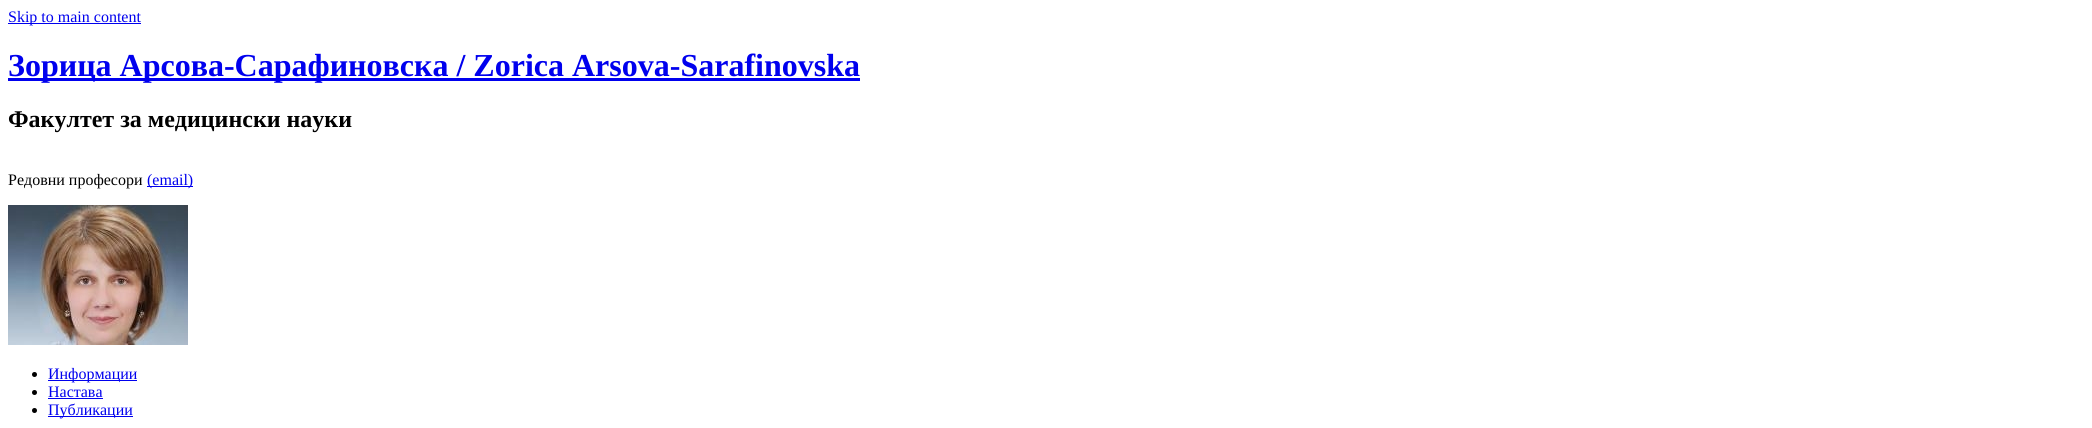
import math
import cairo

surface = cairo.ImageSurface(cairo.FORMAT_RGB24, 2092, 428)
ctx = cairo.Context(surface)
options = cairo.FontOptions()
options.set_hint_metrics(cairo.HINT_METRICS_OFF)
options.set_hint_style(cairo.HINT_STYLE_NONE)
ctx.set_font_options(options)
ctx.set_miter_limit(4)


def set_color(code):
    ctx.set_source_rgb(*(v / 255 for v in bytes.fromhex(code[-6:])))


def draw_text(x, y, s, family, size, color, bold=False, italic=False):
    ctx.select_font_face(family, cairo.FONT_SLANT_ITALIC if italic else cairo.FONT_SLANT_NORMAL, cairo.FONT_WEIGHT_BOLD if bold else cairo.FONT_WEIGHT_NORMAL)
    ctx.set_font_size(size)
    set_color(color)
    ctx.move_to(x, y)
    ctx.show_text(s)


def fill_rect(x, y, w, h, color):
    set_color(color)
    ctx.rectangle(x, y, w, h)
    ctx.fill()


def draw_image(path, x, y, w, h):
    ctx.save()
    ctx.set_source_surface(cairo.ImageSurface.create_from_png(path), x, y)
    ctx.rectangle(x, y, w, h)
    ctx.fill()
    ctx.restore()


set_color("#ffffff")
ctx.paint()
fill_rect(8, 23, 133, 1, "#0000ee")
draw_text(8, 22, "Skip to main content", "Liberation Serif", 16, "#0000ee")
fill_rect(8, 78, 852, 3, "#0000ee")
draw_text(8, 76, "Зорица Арсова-Сарафиновска / Zorica Arsova-Sarafinovska", "Liberation Serif", 32, "#0000ee", bold=True)
draw_text(8, 127, "Факултет за медицински науки", "Liberation Serif", 24, "#000000", bold=True)
draw_text(8, 185, "Редовни професори", "Liberation Serif", 16, "#000000")
fill_rect(147, 186, 46, 1, "#0000ee")
draw_text(147, 185, "(email)", "Liberation Serif", 16, "#0000ee")
draw_image("assets/img1.png", 8, 205, 180, 140)
set_color("#000000")
ctx.arc(34.5, 374.5, 2.5, 0, 2 * math.pi)
ctx.fill()
fill_rect(48, 380, 89, 1, "#0000ee")
draw_text(48, 379, "Информации", "Liberation Serif", 16, "#0000ee")
set_color("#000000")
ctx.new_path()
ctx.arc(34.5, 392.5, 2.5, 0, 2 * math.pi)
ctx.fill()
draw_text(48, 397, "Настава", "Liberation Serif", 16, "#0000ee")
fill_rect(48, 398, 55, 1, "#0000ee")
set_color("#000000")
ctx.new_path()
ctx.arc(34.5, 410.5, 2.5, 0, 2 * math.pi)
ctx.fill()
fill_rect(48, 416, 85, 1, "#0000ee")
draw_text(48, 415, "Публикации", "Liberation Serif", 16, "#0000ee")
surface.write_to_png("output.png")
